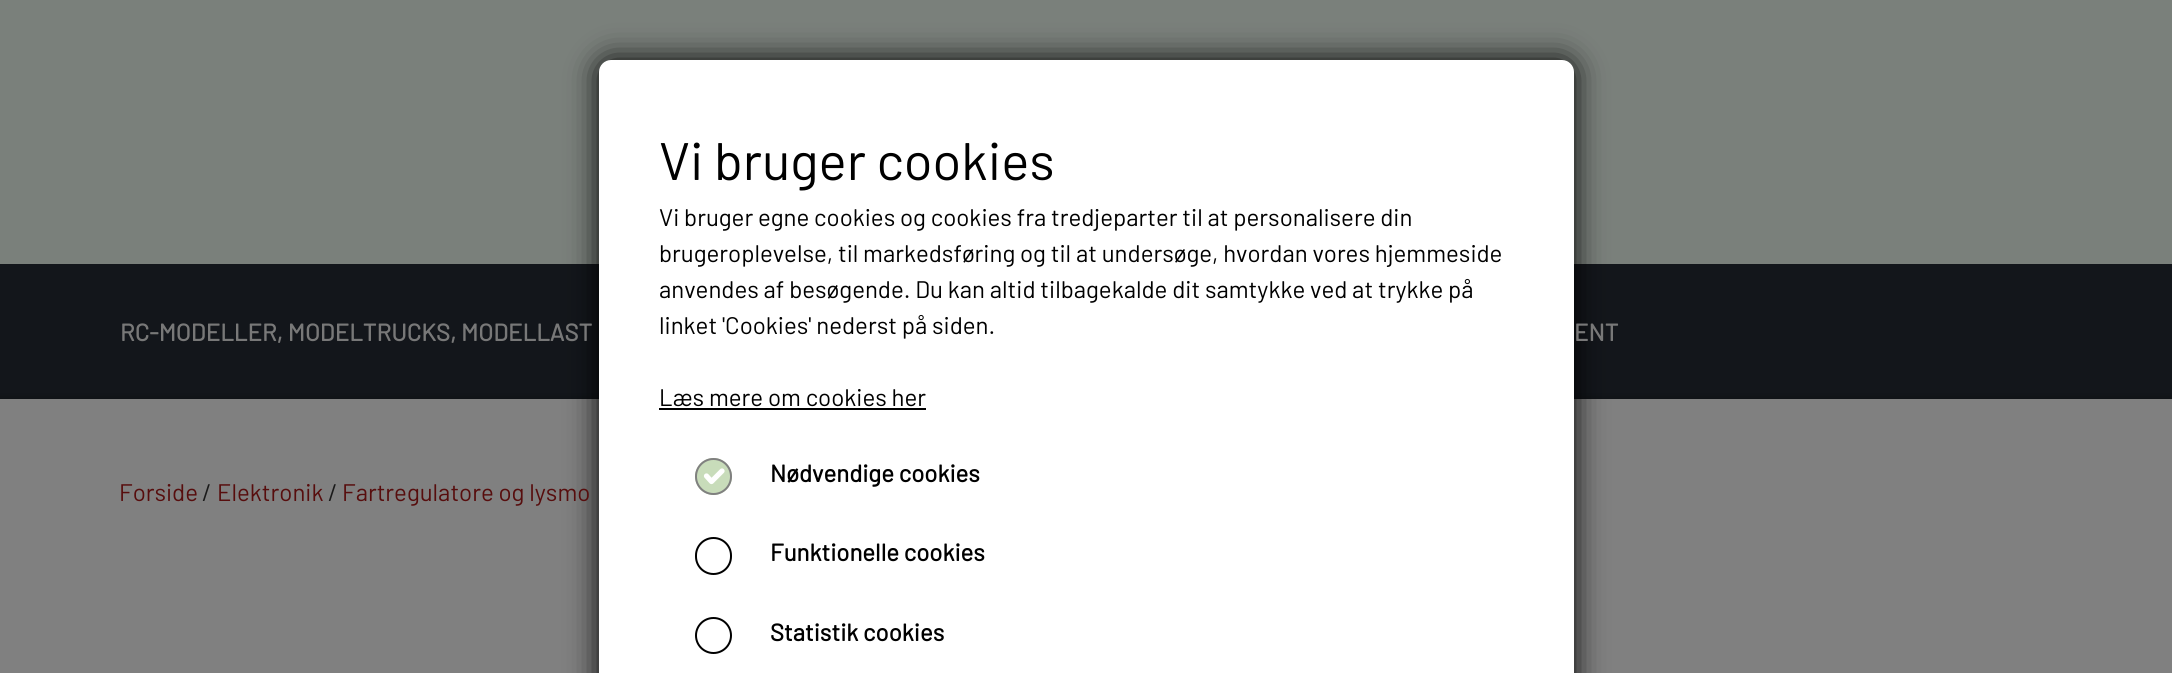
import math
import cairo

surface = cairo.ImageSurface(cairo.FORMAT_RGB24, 2172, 673)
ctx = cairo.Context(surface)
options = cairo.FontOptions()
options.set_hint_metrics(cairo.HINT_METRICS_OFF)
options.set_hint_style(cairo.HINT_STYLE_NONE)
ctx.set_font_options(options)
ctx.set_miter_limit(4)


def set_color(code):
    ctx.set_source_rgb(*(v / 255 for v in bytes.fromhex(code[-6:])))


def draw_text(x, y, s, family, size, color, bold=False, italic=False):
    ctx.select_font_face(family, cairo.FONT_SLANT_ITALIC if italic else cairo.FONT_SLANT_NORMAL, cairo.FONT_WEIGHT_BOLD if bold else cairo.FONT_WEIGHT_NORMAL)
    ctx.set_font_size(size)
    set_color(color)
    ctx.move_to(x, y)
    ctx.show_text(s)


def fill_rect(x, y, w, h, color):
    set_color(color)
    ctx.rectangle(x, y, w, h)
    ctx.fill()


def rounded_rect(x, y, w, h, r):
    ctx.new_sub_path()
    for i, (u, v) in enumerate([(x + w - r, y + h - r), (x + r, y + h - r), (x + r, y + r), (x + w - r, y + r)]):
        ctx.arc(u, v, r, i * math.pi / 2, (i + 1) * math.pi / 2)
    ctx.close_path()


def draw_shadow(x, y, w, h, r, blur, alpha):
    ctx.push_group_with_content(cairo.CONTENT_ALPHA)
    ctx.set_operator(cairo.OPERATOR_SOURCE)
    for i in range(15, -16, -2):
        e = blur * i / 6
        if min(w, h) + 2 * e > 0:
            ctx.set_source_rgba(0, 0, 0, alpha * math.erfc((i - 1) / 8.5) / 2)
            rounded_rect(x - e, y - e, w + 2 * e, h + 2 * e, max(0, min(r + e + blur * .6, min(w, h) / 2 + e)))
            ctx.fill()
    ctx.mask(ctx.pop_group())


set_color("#808080")
ctx.paint()
fill_rect(0, 0, 2172, 264, "#7a807b")
fill_rect(0, 264, 2172, 128, "#13161b")
gradient = cairo.LinearGradient(1086, 399, 1086, 392)
gradient.add_color_stop_rgba(0, 0.063, 0.075, 0.09, 1)
gradient.add_color_stop_rgba(1, 0.075, 0.086, 0.106, 1)
ctx.set_source(gradient)
ctx.rectangle(0, 392, 2172, 7)
ctx.fill()
set_color("#000000")
draw_shadow(599, 60, 975, 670, 12, 15, 1)
set_color("#ffffff")
ctx.new_path()
ctx.move_to(611, 60)
ctx.line_to(1562, 60)
ctx.curve_to(1568.5, 60, 1574, 65.5, 1574, 72)
ctx.line_to(1574, 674)
ctx.line_to(599, 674)
ctx.line_to(599, 72)
ctx.curve_to(599, 65.5, 604.5, 60, 611, 60)
ctx.close_path()
ctx.fill()
draw_text(659, 180, "Vi bruger cookies", "Barlow", 52.75, "#000000")
draw_text(659, 226, "Vi bruger egne cookies og cookies fra tredjeparter til at personalisere din", "Barlow", 24, "#000000")
draw_text(659, 262, "brugeroplevelse, til markedsføring og til at undersøge, hvordan vores hjemmeside", "Barlow", 24, "#000000")
draw_text(659, 298, "anvendes af besøgende. Du kan altid tilbagekalde dit samtykke ved at trykke på", "Barlow", 24, "#000000")
draw_text(659, 334, "linket 'Cookies' nederst på siden.", "Barlow", 24, "#000000")
draw_text(659, 406, "Læs mere om cookies her", "Barlow", 24, "#000000")
fill_rect(659, 408, 267, 2, "#000000")
set_color("#c8dcba")
ctx.new_path()
ctx.arc(713.5, 476.5, 18.5, 0, 2 * math.pi)
ctx.fill()
ctx.new_path()
ctx.move_to(706.5, 476)
ctx.line_to(711.5, 481.5)
ctx.line_to(722, 471)
set_color("#ffffff")
ctx.set_line_width(5.2)
ctx.set_line_cap(cairo.LINE_CAP_ROUND)
ctx.set_line_join(cairo.LINE_JOIN_ROUND)
ctx.stroke()
ctx.arc(713.5, 476.5, 17.5, 0, 2 * math.pi)
set_color("#808080")
ctx.set_line_width(2)
ctx.set_line_cap(cairo.LINE_CAP_BUTT)
ctx.set_line_join(cairo.LINE_JOIN_MITER)
ctx.stroke()
draw_text(770, 482, "Nødvendige cookies", "Barlow", 24, "#000000", bold=True)
rounded_rect(696, 538, 35, 36, 17.5)
ctx.stroke()
draw_text(770, 561, "Funktionelle cookies", "Barlow", 24, "#000000", bold=True)
ctx.new_path()
ctx.arc(713.5, 635.5, 17.5, 0, 2 * math.pi)
ctx.stroke()
draw_text(770, 641, "Statistik cookies", "Barlow", 24, "#000000", bold=True)
draw_text(120, 341, "RC-MODELLER, MODELTRUCKS, MODELLAST", "Barlow", 24, "#787878", bold=True)
draw_text(1574, 341, "ENT", "Barlow", 24, "#787878", bold=True)
draw_text(119, 501, "Forside", "Barlow", 24, "#570d0d")
draw_text(202, 501, "/", "Barlow", 24, "#1a1a1a")
draw_text(217, 501, "Elektronik", "Barlow", 24, "#570d0d")
draw_text(328, 501, "/", "Barlow", 24, "#1a1a1a")
draw_text(342, 501, "Fartregulatore og lysmo", "Barlow", 24, "#570d0d")
surface.write_to_png("output.png")
